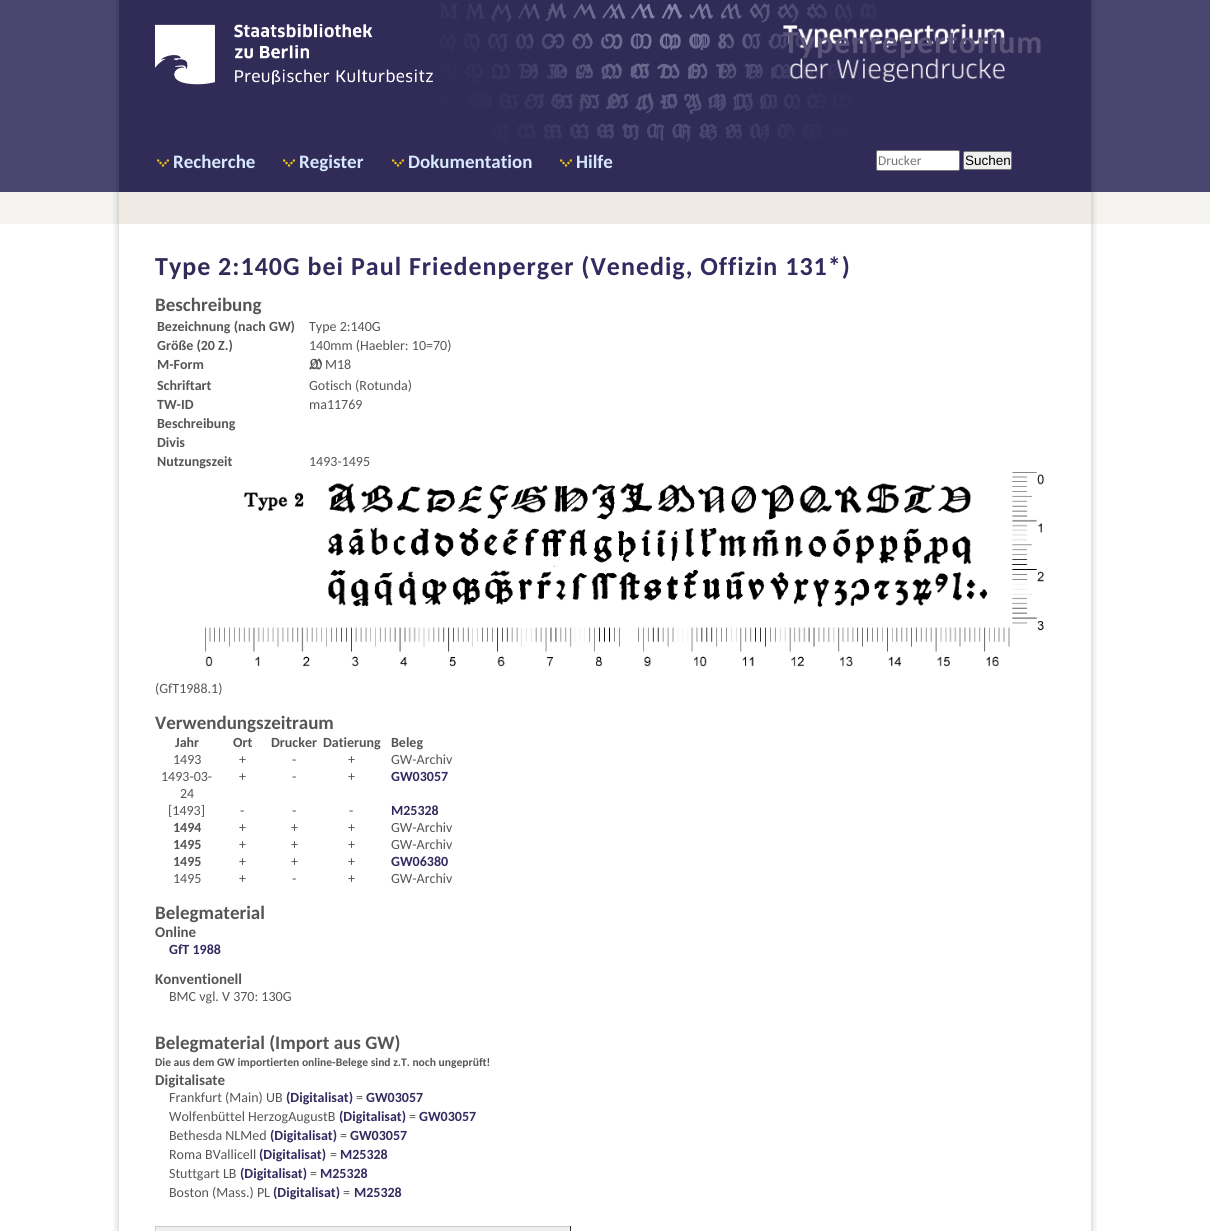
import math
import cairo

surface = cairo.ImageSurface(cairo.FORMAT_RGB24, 1210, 1231)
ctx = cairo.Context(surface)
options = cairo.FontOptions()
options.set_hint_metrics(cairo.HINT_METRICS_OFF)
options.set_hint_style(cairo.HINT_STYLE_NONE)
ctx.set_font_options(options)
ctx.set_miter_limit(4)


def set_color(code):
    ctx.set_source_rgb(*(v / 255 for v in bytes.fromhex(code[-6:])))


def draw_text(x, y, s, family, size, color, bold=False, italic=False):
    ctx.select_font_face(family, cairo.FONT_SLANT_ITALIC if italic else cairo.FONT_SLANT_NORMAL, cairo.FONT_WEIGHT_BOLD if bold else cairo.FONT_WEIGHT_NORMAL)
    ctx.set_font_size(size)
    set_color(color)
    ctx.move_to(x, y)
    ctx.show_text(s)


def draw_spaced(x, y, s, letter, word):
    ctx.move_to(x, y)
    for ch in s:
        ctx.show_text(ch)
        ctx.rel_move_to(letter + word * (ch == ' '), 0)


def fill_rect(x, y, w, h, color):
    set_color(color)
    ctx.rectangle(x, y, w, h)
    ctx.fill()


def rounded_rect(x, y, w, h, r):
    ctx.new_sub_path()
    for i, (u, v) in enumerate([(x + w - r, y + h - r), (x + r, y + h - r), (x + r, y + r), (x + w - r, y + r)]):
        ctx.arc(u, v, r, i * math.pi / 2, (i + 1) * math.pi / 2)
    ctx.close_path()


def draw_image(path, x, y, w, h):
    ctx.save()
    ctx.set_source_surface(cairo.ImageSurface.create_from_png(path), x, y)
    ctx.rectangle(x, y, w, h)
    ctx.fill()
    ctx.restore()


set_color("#48456f")
ctx.paint()
draw_image("assets/img1.png", 116, 0, 978, 192)
draw_image("assets/img2.png", 440, 3, 436, 139)
draw_image("assets/img3.png", 155, 24, 278, 61)
draw_image("assets/img4.png", 783, 24, 222, 58)
ctx.select_font_face("Carlito", cairo.FONT_SLANT_NORMAL, cairo.FONT_WEIGHT_BOLD)
ctx.set_font_size(32)
set_color("#595478")
draw_spaced(783, 53, "Typenrepertorium", 1, 0)
draw_image("assets/img5.png", 157, 159, 12, 8)
draw_text(173, 168, "Recherche", "Carlito", 19, "#d7e9ff", bold=True)
draw_image("assets/img5.png", 283, 159, 12, 8)
draw_text(299, 168, "Register", "Carlito", 19, "#d7e9ff", bold=True)
draw_image("assets/img5.png", 392, 159, 12, 8)
draw_text(408, 168, "Dokumentation", "Carlito", 19, "#d7e9ff", bold=True)
draw_image("assets/img5.png", 560, 159, 12, 8)
draw_text(576, 168, "Hilfe", "Carlito", 19, "#d7e9ff", bold=True)
set_color("#ffffff")
rounded_rect(876.5, 150.5, 83, 20, 1.5)
ctx.fill_preserve()
set_color("#767676")
ctx.set_line_width(1)
ctx.stroke()
draw_text(878, 165, "Drucker", "Carlito", 13.5, "#757575")
set_color("#efefef")
rounded_rect(963.5, 151.5, 48, 18, 1.5)
ctx.fill_preserve()
set_color("#767676")
ctx.stroke()
draw_text(965, 165, "Suchen", "Liberation Sans", 13.5, "#000000")
fill_rect(0, 192, 1210, 32, "#f5f3ef")
draw_image("assets/img6.png", 113, 192, 984, 32)
fill_rect(0, 224, 1210, 1007, "#ffffff")
draw_image("assets/img7.png", 113, 224, 984, 1007)
ctx.select_font_face("Carlito", cairo.FONT_SLANT_NORMAL, cairo.FONT_WEIGHT_BOLD)
ctx.set_font_size(26)
set_color("#312b58")
draw_spaced(155, 275, "Type 2:140G bei", 1, 0)
set_color("#312b5f")
draw_spaced(351, 275, "Paul Friedenperger (Venedig, Offizin 131*)", 1, 0)
draw_text(155, 311, "Beschreibung", "Carlito", 19, "#555555", bold=True)
draw_text(157, 331, "Bezeichnung (nach GW)", "Carlito", 14, "#555555", bold=True)
draw_text(309, 331, "Type 2:140G", "Carlito", 14, "#555555")
draw_text(157, 350, "Größe (20 Z.)", "Carlito", 14, "#555555", bold=True)
draw_text(309, 350, "140mm (Haebler: 10=70)", "Carlito", 14, "#555555")
draw_text(157, 369, "M-Form", "Carlito", 14, "#555555", bold=True)
draw_image("assets/img8.png", 309, 358, 13, 12)
draw_text(325, 369, "M18", "Carlito", 14, "#555555")
draw_text(157, 390, "Schriftart", "Carlito", 14, "#555555", bold=True)
draw_text(309, 390, "Gotisch (Rotunda)", "Carlito", 14, "#555555")
draw_text(157, 409, "TW-ID", "Carlito", 14, "#555555", bold=True)
draw_text(309, 409, "ma11769", "Carlito", 14, "#555555")
draw_text(157, 428, "Beschreibung", "Carlito", 14, "#555555", bold=True)
draw_text(157, 447, "Divis", "Carlito", 14, "#555555", bold=True)
draw_text(157, 466, "Nutzungszeit", "Carlito", 14, "#555555", bold=True)
draw_text(309, 466, "1493-1495", "Carlito", 14, "#555555")
draw_image("assets/img9.png", 205, 472, 839, 195)
draw_text(155, 693, "(GfT1988.1)", "Carlito", 14, "#555555")
draw_text(155, 729, "Verwendungszeitraum", "Carlito", 19, "#555555", bold=True)
draw_text(175, 747, "Jahr", "Carlito", 14, "#555555", bold=True)
draw_text(233, 747, "Ort", "Carlito", 14, "#555555", bold=True)
draw_text(271, 747, "Drucker", "Carlito", 14, "#555555", bold=True)
draw_text(323, 747, "Datierung", "Carlito", 14, "#555555", bold=True)
draw_text(391, 747, "Beleg", "Carlito", 14, "#555555", bold=True)
draw_text(173, 764, "1493", "Carlito", 14, "#555555")
draw_text(239, 764, "+", "Carlito", 14, "#555555")
draw_text(292, 764, "-", "Carlito", 14, "#555555")
draw_text(348, 764, "+", "Carlito", 14, "#555555")
draw_text(391, 764, "GW-Archiv", "Carlito", 14, "#555555")
draw_text(161, 781, "1493-03-", "Carlito", 14, "#555555")
draw_text(180, 798, "24", "Carlito", 14, "#555555")
draw_text(239, 781, "+", "Carlito", 14, "#555555")
draw_text(292, 781, "-", "Carlito", 14, "#555555")
draw_text(348, 781, "+", "Carlito", 14, "#555555")
draw_text(391, 781, "GW03057", "Carlito", 14, "#312b5f", bold=True)
draw_text(168, 815, "[1493]", "Carlito", 14, "#555555")
draw_text(240, 815, "-", "Carlito", 14, "#555555")
draw_text(292, 815, "-", "Carlito", 14, "#555555")
draw_text(349, 815, "-", "Carlito", 14, "#555555")
draw_text(391, 815, "M25328", "Carlito", 14, "#312b5f", bold=True)
draw_text(173, 832, "1494", "Carlito", 14, "#555555", bold=True)
draw_text(239, 832, "+", "Carlito", 14, "#555555")
draw_text(291, 832, "+", "Carlito", 14, "#555555")
draw_text(348, 832, "+", "Carlito", 14, "#555555")
draw_text(391, 832, "GW-Archiv", "Carlito", 14, "#555555")
draw_text(173, 849, "1495", "Carlito", 14, "#555555", bold=True)
draw_text(239, 849, "+", "Carlito", 14, "#555555")
draw_text(291, 849, "+", "Carlito", 14, "#555555")
draw_text(348, 849, "+", "Carlito", 14, "#555555")
draw_text(391, 849, "GW-Archiv", "Carlito", 14, "#555555")
draw_text(173, 866, "1495", "Carlito", 14, "#555555", bold=True)
draw_text(239, 866, "+", "Carlito", 14, "#555555")
draw_text(291, 866, "+", "Carlito", 14, "#555555")
draw_text(348, 866, "+", "Carlito", 14, "#555555")
draw_text(391, 866, "GW06380", "Carlito", 14, "#312b5f", bold=True)
draw_text(173, 883, "1495", "Carlito", 14, "#555555")
draw_text(239, 883, "+", "Carlito", 14, "#555555")
draw_text(292, 883, "-", "Carlito", 14, "#555555")
draw_text(348, 883, "+", "Carlito", 14, "#555555")
draw_text(391, 883, "GW-Archiv", "Carlito", 14, "#555555")
draw_text(155, 919, "Belegmaterial", "Carlito", 19, "#555555", bold=True)
draw_text(155, 937, "Online", "Carlito", 15, "#555555", bold=True)
draw_text(169, 954, "GfT 1988", "Carlito", 14, "#312b5f", bold=True)
draw_text(155, 984, "Konventionell", "Carlito", 15, "#555555", bold=True)
draw_text(169, 1001, "BMC vgl. V 370: 130G", "Carlito", 14, "#555555")
draw_text(155, 1049, "Belegmaterial (Import aus GW)", "Carlito", 19, "#555555", bold=True)
draw_text(155, 1066, "Die aus dem GW importierten online-Belege sind z.T. noch ungeprüft!", "Carlito", 11.6, "#555555", bold=True)
draw_text(155, 1085, "Digitalisate", "Carlito", 15, "#555555", bold=True)
draw_text(169, 1102, "Frankfurt (Main) UB", "Carlito", 14, "#555555")
draw_text(286, 1102, "(Digitalisat)", "Carlito", 14, "#312b5f", bold=True)
draw_text(356, 1102, "=", "Carlito", 14, "#555555")
draw_text(366, 1102, "GW03057", "Carlito", 14, "#312b5f", bold=True)
draw_text(169, 1121, "Wolfenbüttel HerzogAugustB", "Carlito", 14, "#555555")
draw_text(339, 1121, "(Digitalisat)", "Carlito", 14, "#312b5f", bold=True)
draw_text(409, 1121, "=", "Carlito", 14, "#555555")
draw_text(419, 1121, "GW03057", "Carlito", 14, "#312b5f", bold=True)
draw_text(169, 1140, "Bethesda NLMed", "Carlito", 14, "#555555")
draw_text(270, 1140, "(Digitalisat)", "Carlito", 14, "#312b5f", bold=True)
draw_text(340, 1140, "=", "Carlito", 14, "#555555")
draw_text(350, 1140, "GW03057", "Carlito", 14, "#312b5f", bold=True)
draw_text(169, 1159, "Roma BVallicell", "Carlito", 14, "#555555")
draw_text(259, 1159, "(Digitalisat)", "Carlito", 14, "#312b5f", bold=True)
draw_text(330, 1159, "=", "Carlito", 14, "#555555")
draw_text(340, 1159, "M25328", "Carlito", 14, "#312b5f", bold=True)
draw_text(169, 1178, "Stuttgart LB", "Carlito", 14, "#555555")
draw_text(240, 1178, "(Digitalisat)", "Carlito", 14, "#312b5f", bold=True)
draw_text(310, 1178, "=", "Carlito", 14, "#555555")
draw_text(320, 1178, "M25328", "Carlito", 14, "#312b5f", bold=True)
draw_text(169, 1197, "Boston (Mass.) PL", "Carlito", 14, "#555555")
draw_text(273, 1197, "(Digitalisat)", "Carlito", 14, "#312b5f", bold=True)
draw_text(343, 1197, "=", "Carlito", 14, "#555555")
draw_text(354, 1197, "M25328", "Carlito", 14, "#312b5f", bold=True)
fill_rect(155, 1226, 416, 1, "#cccccc")
fill_rect(155, 1227, 416, 4, "#eeeeee")
fill_rect(155, 1226, 1, 5, "#cccccc")
fill_rect(570, 1226, 1, 5, "#333333")
surface.write_to_png("output.png")
